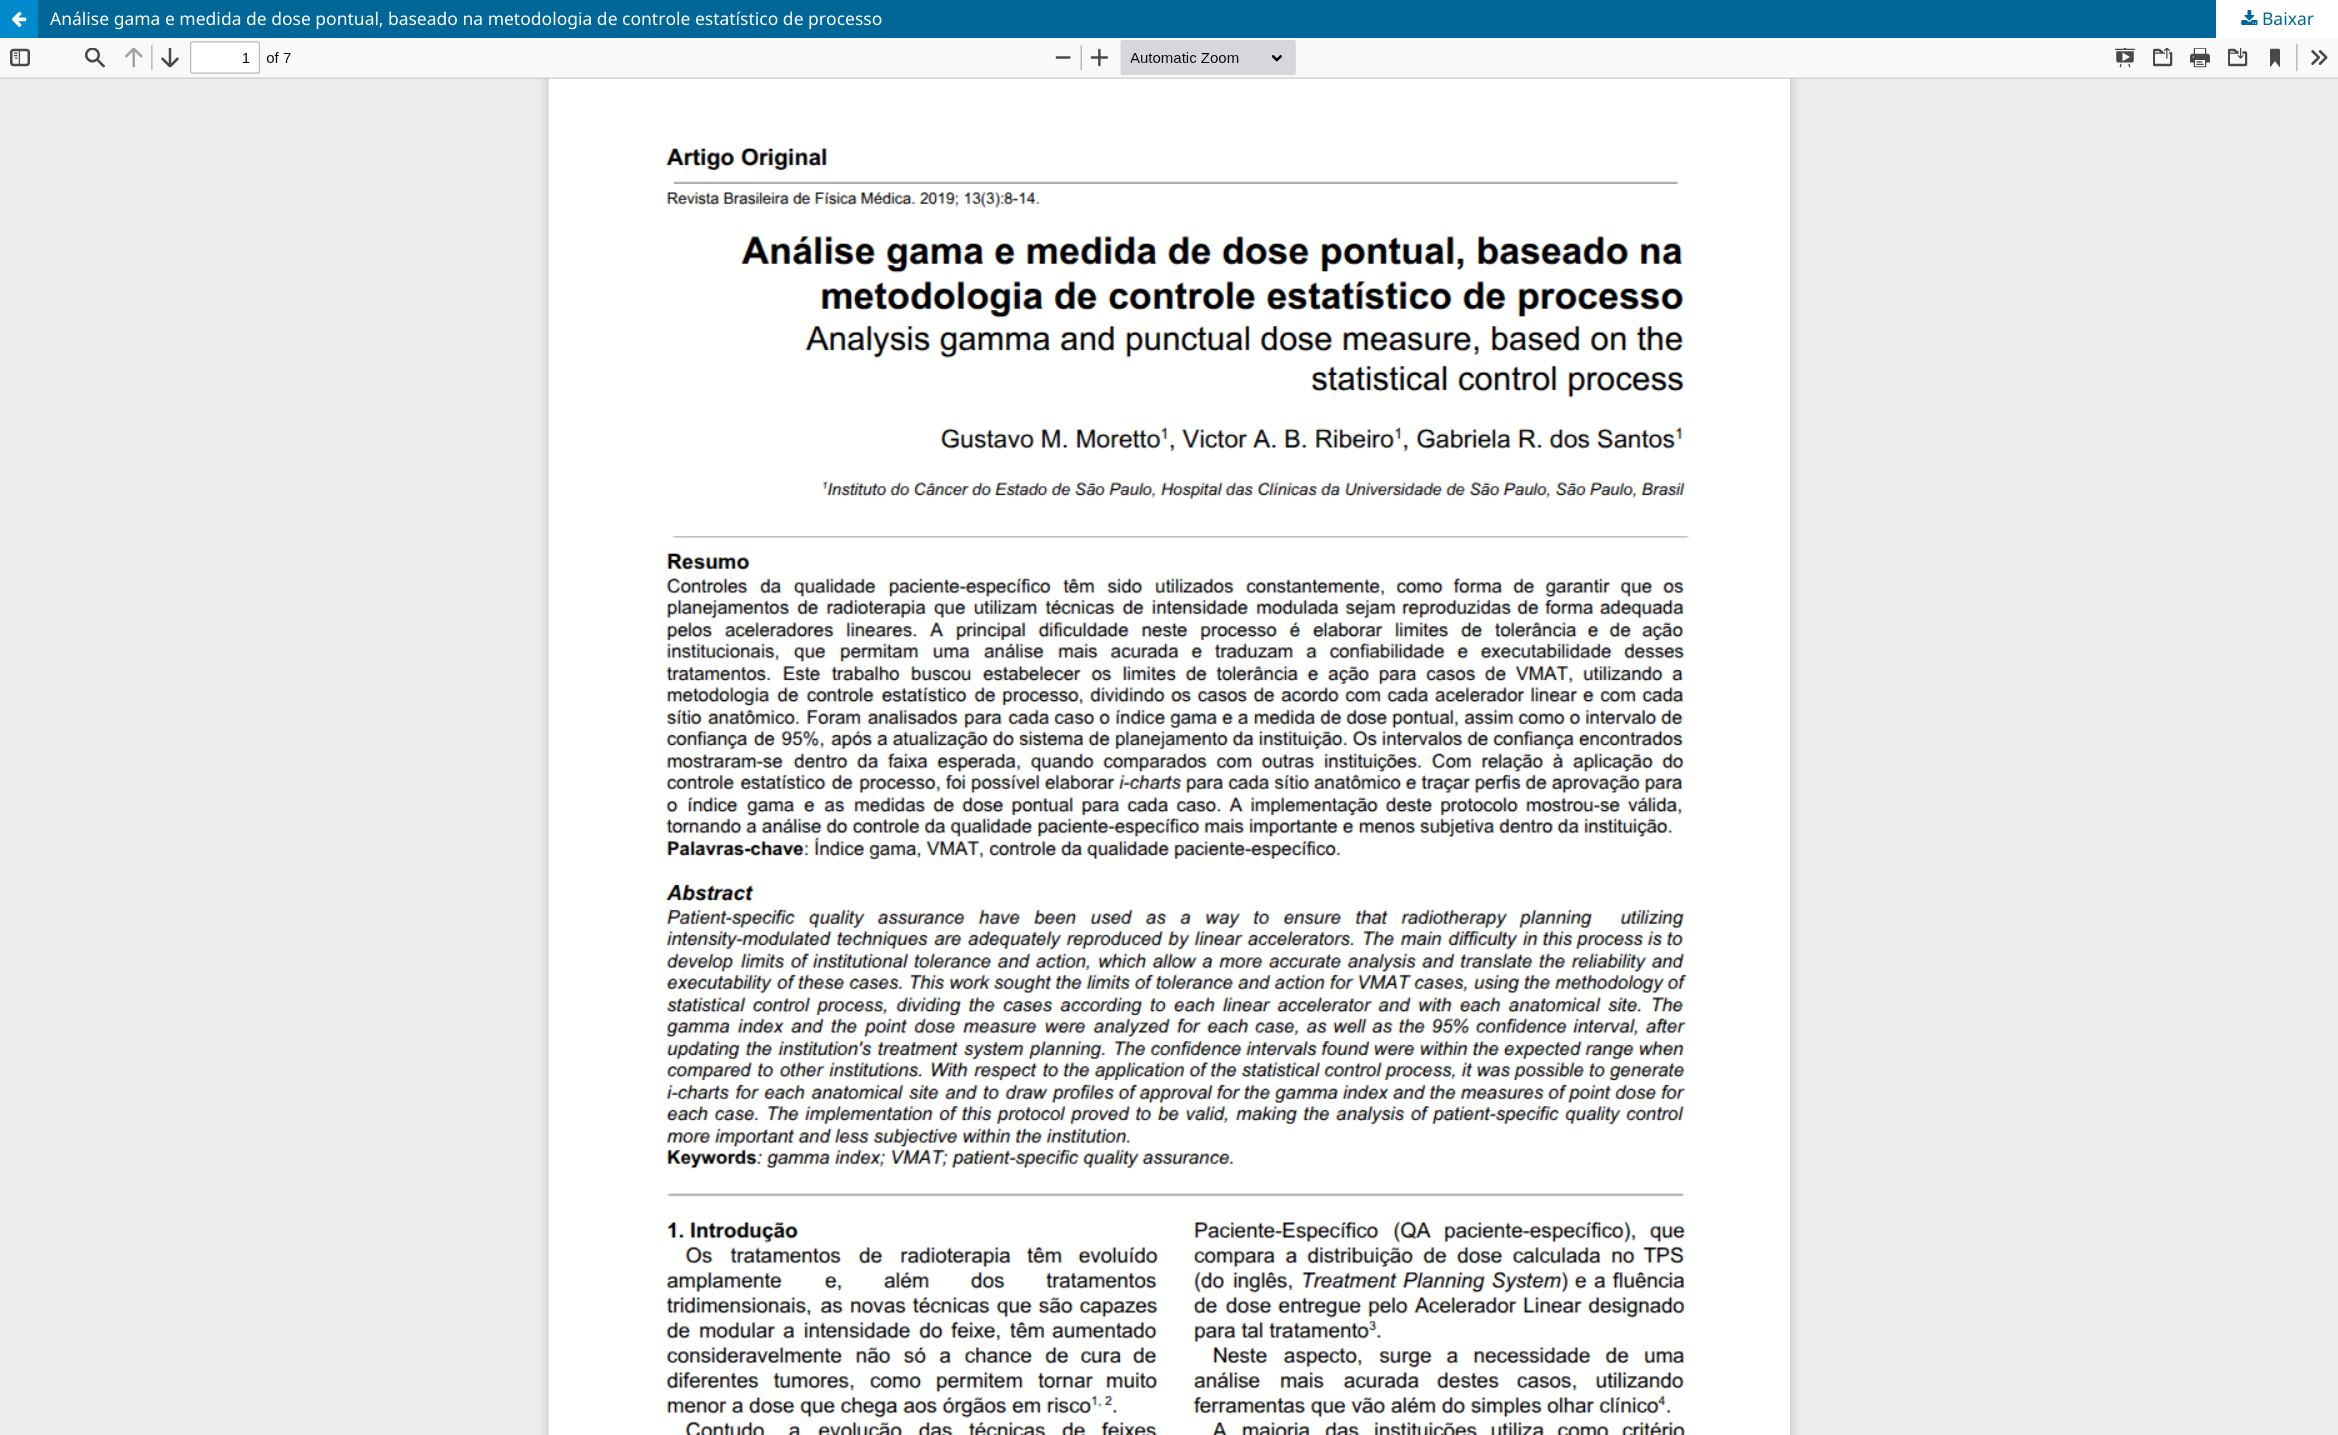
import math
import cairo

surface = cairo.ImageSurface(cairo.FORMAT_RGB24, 2338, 1435)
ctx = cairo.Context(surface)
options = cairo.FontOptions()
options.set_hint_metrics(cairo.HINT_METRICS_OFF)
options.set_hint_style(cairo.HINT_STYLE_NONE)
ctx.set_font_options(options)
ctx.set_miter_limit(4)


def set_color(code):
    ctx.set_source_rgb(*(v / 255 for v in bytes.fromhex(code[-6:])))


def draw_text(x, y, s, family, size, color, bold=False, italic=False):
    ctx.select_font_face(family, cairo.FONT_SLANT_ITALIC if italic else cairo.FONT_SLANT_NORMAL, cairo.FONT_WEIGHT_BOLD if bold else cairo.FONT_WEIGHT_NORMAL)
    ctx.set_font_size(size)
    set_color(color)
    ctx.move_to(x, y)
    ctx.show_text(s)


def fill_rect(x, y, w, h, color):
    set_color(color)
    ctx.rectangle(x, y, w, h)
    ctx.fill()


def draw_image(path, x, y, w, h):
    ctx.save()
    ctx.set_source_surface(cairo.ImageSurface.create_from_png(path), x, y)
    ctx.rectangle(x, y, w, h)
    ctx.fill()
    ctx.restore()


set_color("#ffffff")
ctx.paint()
fill_rect(38, 0, 2178, 38, "#006798")
fill_rect(0, 0, 38, 38, "#008acb")
draw_image("assets/img1.png", 11, 11, 16, 16)
draw_text(50, 25, "Análise gama e medida de dose pontual, baseado na metodologia de controle estatístico de processo", "Noto Sans", 17.5, "#ffffff")
draw_image("assets/img2.png", 2241, 10, 17, 15)
draw_text(2262, 25, "Baixar", "Noto Sans", 17.5, "#006798")
draw_image("assets/img3.png", 0, 38, 2338, 1397)
surface.write_to_png("output.png")
